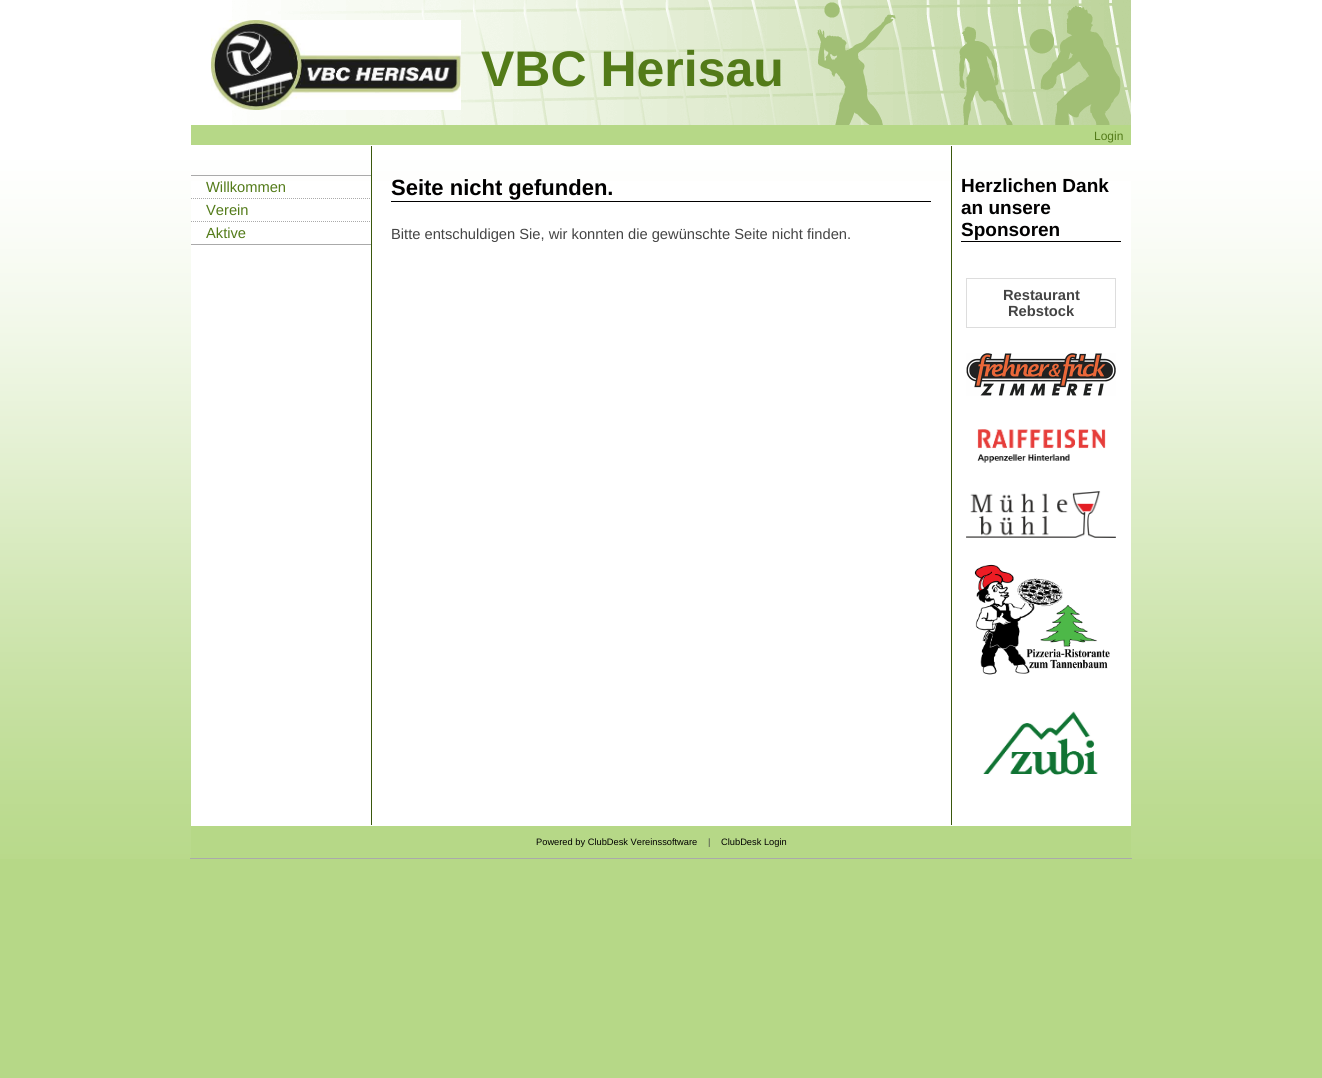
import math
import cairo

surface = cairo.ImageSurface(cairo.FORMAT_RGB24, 1322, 1078)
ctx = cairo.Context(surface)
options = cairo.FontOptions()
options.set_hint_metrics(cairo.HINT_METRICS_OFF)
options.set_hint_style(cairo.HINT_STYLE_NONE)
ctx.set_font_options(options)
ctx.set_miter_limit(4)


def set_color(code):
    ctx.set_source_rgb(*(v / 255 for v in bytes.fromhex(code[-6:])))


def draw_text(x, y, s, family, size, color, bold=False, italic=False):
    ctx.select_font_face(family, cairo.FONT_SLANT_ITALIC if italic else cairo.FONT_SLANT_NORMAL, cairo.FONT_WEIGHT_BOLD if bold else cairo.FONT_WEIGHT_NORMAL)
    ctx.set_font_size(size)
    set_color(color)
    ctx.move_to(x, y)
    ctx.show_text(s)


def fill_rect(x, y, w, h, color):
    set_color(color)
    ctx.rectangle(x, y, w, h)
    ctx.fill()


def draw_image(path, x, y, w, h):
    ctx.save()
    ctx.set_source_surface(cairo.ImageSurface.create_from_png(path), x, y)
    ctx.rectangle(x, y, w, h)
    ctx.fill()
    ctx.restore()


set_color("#b6d887")
ctx.paint()
draw_image("assets/img1.png", 0, 0, 1322, 859)
draw_image("assets/img2.png", 232, 0, 899, 125)
draw_image("assets/img3.png", 211, 20, 250, 90)
draw_text(481, 86, "VBC Herisau", "Liberation Sans", 50, "#537b19", bold=True)
fill_rect(191, 125, 940, 20, "#b6d887")
draw_text(1094, 140, "Login", "Liberation Sans", 12, "#537b19")
fill_rect(191, 181, 940, 645, "#ffffff")
fill_rect(371, 146, 1, 679, "#39580c")
fill_rect(391, 201, 540, 1, "#010000")
draw_text(391, 195, "Seite nicht gefunden.", "Liberation Sans", 22, "#010000", bold=True)
draw_text(391, 239, "Bitte entschuldigen Sie, wir konnten die gewünschte Seite nicht finden.", "Liberation Sans", 14.7, "#444444")
fill_rect(951, 146, 1, 679, "#39580c")
fill_rect(961, 241, 160, 1, "#010000")
draw_text(961, 192, "Herzlichen Dank", "Liberation Sans", 19, "#010000", bold=True)
draw_text(961, 214, "an unsere", "Liberation Sans", 19, "#010000", bold=True)
draw_text(961, 236, "Sponsoren", "Liberation Sans", 19, "#010000", bold=True)
ctx.rectangle(966.5, 278.5, 149, 49)
set_color("#dddddd")
ctx.set_line_width(1)
ctx.stroke()
draw_text(1003, 300, "Restaurant", "Liberation Sans", 14.7, "#444444", bold=True)
draw_text(1008, 316, "Rebstock", "Liberation Sans", 14.7, "#444444", bold=True)
draw_image("assets/img4.png", 966, 353, 150, 43)
draw_image("assets/img5.png", 977, 429, 129, 34)
draw_image("assets/img6.png", 966, 491, 150, 47)
draw_image("assets/img7.png", 974, 564, 136, 111)
draw_image("assets/img8.png", 983, 711, 115, 64)
fill_rect(191, 175, 180, 1, "#aaaaaa")
fill_rect(191, 244, 180, 1, "#aaaaaa")
draw_text(206, 192, "Willkommen", "Liberation Sans", 14.7, "#537b19")
ctx.new_path()
ctx.move_to(191, 198.5)
ctx.line_to(371, 198.5)
set_color("#aaaaaa")
ctx.set_dash([1, 1])
ctx.stroke()
draw_text(206, 215, "Verein", "Liberation Sans", 14.7, "#537b19")
ctx.new_path()
ctx.move_to(191, 221.5)
ctx.line_to(371, 221.5)
set_color("#aaaaaa")
ctx.stroke()
draw_text(206, 238, "Aktive", "Liberation Sans", 14.7, "#537b19")
fill_rect(191, 826, 940, 32, "#b6d887")
draw_text(536, 845, "Powered by ClubDesk Vereinssoftware", "Liberation Sans", 9.3, "#010000")
draw_text(708, 845, "|", "Liberation Sans", 9.3, "#444444")
draw_text(721, 845, "ClubDesk Login", "Liberation Sans", 9.3, "#010000")
fill_rect(190, 858, 942, 1, "#aaaaaa")
surface.write_to_png("output.png")
